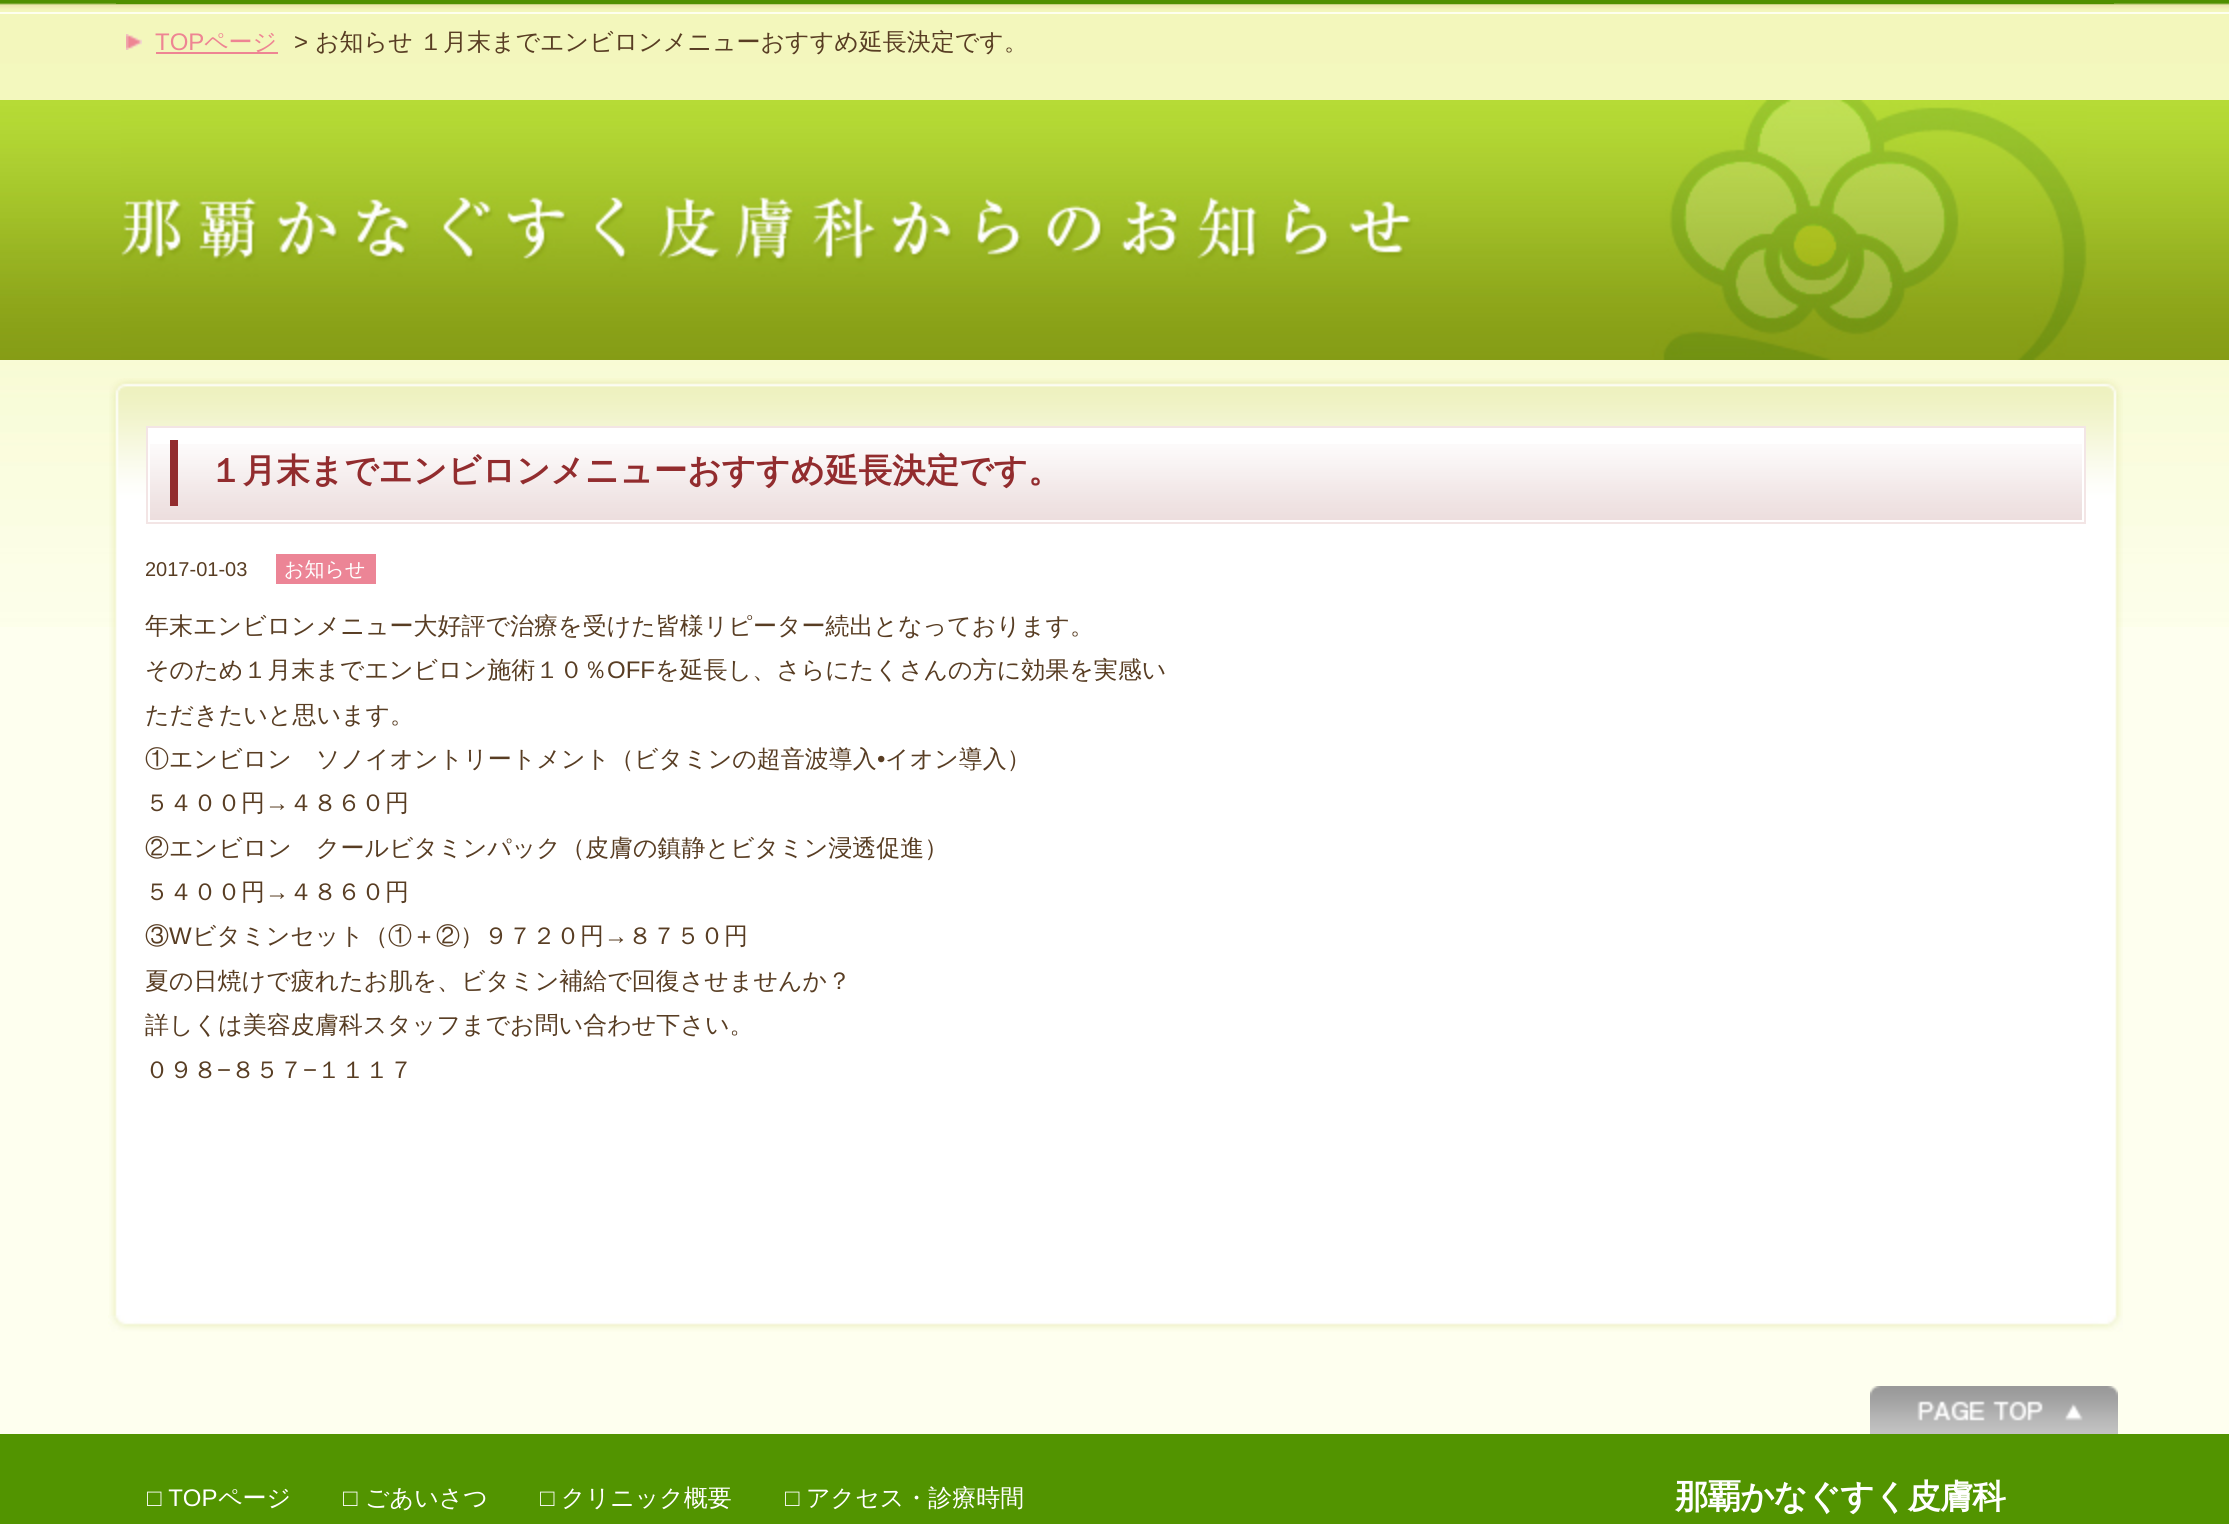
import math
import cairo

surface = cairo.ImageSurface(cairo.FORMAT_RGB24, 2229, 1524)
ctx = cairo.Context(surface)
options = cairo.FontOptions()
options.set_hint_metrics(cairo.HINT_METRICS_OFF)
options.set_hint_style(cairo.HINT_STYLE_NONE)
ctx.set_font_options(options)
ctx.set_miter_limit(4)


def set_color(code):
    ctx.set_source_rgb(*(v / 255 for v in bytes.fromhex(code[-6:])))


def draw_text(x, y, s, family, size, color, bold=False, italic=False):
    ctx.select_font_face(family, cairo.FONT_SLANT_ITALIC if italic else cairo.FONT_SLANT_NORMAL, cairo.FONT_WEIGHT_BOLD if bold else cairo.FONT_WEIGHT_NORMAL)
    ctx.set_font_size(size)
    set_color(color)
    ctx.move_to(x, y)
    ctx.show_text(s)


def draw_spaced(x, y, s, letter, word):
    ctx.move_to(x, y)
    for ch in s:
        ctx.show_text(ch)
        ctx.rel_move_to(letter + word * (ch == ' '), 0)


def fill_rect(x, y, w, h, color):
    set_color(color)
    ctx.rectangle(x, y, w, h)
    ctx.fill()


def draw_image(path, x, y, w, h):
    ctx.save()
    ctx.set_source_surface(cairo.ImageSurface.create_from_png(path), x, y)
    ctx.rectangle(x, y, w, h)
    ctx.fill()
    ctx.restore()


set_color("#feffef")
ctx.paint()
draw_image("assets/img1.png", 0, 14, 2229, 613)
draw_image("assets/img2.png", 0, 0, 2229, 12)
fill_rect(116, 3, 330, 1, "#508f00")
fill_rect(446, 3, 334, 1, "#508f02")
fill_rect(780, 3, 334, 1, "#508f00")
fill_rect(1114, 3, 334, 1, "#508f02")
fill_rect(1448, 3, 666, 1, "#508f00")
draw_image("assets/img3.png", 126, 34, 16, 16)
draw_text(155, 50, "TOP", "Liberation Sans", 24, "#ee8593")
fill_rect(156, 52, 122, 2, "#ee8593")
draw_text(204, 50, "ページ", "WenQuanYi Zen Hei Medium", 24, "#ee8593")
draw_text(294, 50, ">", "Liberation Sans", 24, "#583d23")
ctx.select_font_face("WenQuanYi Zen Hei Medium")
draw_spaced(315, 50, "お知らせ １月末までエンビロンメニューおすすめ延長決定です。", 0, -1)
draw_image("assets/img4.png", 0, 100, 2229, 260)
draw_image("assets/img5.png", 121, 100, 1966, 260)
draw_image("assets/img6.png", 109, 378, 2014, 937)
draw_image("assets/img7.png", 108, 1315, 2015, 17)
ctx.rectangle(147, 427, 1938, 96)
set_color("#f3e5e5")
ctx.stroke()
fill_rect(150, 430, 1932, 14, "#ffffff")
draw_image("assets/img8.png", 150, 444, 1932, 76)
ctx.rectangle(149, 429, 1934, 92)
ctx.stroke()
fill_rect(170, 440, 8, 66, "#922c2e")
draw_text(209, 482, "１月末までエンビロンメニューおすすめ延長決定です。", "WenQuanYi Zen Hei", 33.6, "#922c2e", bold=True)
draw_text(145, 576, "2017-01-03", "Liberation Sans", 20, "#583d23")
fill_rect(276, 554, 100, 30, "#ec8596")
draw_text(284, 576, "お知らせ", "WenQuanYi Zen Hei Medium", 20, "#ffffff")
draw_text(145, 634, "年末エンビロンメニュー大好評で治療を受けた皆様リピーター続出となっております。", "WenQuanYi Zen Hei Medium", 24, "#583d23")
draw_text(145, 678, "そのため１月末までエンビロン施術１０％", "WenQuanYi Zen Hei Medium", 24, "#583d23")
draw_text(607, 678, "OFF", "Liberation Sans", 24, "#583d23")
draw_text(655, 678, "を延長し、さらにたくさんの方に効果を実感い", "WenQuanYi Zen Hei Medium", 24, "#583d23")
draw_text(145, 723, "ただきたいと思います。", "WenQuanYi Zen Hei Medium", 24, "#583d23")
draw_text(145, 767, "①エンビロン　ソノイオントリートメント（ビタミンの超音波導入", "WenQuanYi Zen Hei Medium", 24, "#583d23")
draw_text(877, 767, "•", "Liberation Sans", 24, "#583d23")
draw_text(885, 767, "イオン導入）", "WenQuanYi Zen Hei Medium", 24, "#583d23")
draw_text(145, 811, "５４００円", "WenQuanYi Zen Hei Medium", 24, "#583d23")
draw_text(265, 811, "→", "Liberation Sans", 24, "#583d23")
draw_text(289, 811, "４８６０円", "WenQuanYi Zen Hei Medium", 24, "#583d23")
draw_text(145, 856, "②エンビロン　クールビタミンパック（皮膚の鎮静とビタミン浸透促進）", "WenQuanYi Zen Hei Medium", 24, "#583d23")
draw_text(145, 900, "５４００円", "WenQuanYi Zen Hei Medium", 24, "#583d23")
draw_text(265, 900, "→", "Liberation Sans", 24, "#583d23")
draw_text(289, 900, "４８６０円", "WenQuanYi Zen Hei Medium", 24, "#583d23")
draw_text(145, 944, "③", "WenQuanYi Zen Hei Medium", 24, "#583d23")
draw_text(169, 944, "W", "Liberation Sans", 24, "#583d23")
draw_text(192, 944, "ビタミンセット（①＋②）９７２０円", "WenQuanYi Zen Hei Medium", 24, "#583d23")
draw_text(604, 944, "→", "Liberation Sans", 24, "#583d23")
draw_text(628, 944, "８７５０円", "WenQuanYi Zen Hei Medium", 24, "#583d23")
draw_text(145, 989, "夏の日焼けで疲れたお肌を、ビタミン補給で回復させませんか？", "WenQuanYi Zen Hei Medium", 24, "#583d23")
draw_text(145, 1033, "詳しくは美容皮膚科スタッフまでお問い合わせ下さい。", "WenQuanYi Zen Hei Medium", 24, "#583d23")
draw_text(145, 1078, "０９８", "WenQuanYi Zen Hei Medium", 24, "#583d23")
draw_text(217, 1078, "−", "Liberation Sans", 24, "#583d23")
draw_text(231, 1078, "８５７", "WenQuanYi Zen Hei Medium", 24, "#583d23")
draw_text(303, 1078, "−", "Liberation Sans", 24, "#583d23")
draw_text(317, 1078, "１１１７", "WenQuanYi Zen Hei Medium", 24, "#583d23")
draw_image("assets/img9.png", 1870, 1386, 248, 48)
fill_rect(0, 1434, 2229, 90, "#529400")
draw_text(147, 1506, "□ TOP", "Liberation Sans", 24, "#ffffff")
draw_text(218, 1506, "ページ", "WenQuanYi Zen Hei Medium", 24, "#ffffff")
draw_text(343, 1506, "□", "Liberation Sans", 24, "#ffffff")
draw_text(365, 1506, "ごあいさつ", "WenQuanYi Zen Hei Medium", 24, "#ffffff")
draw_text(540, 1506, "□", "Liberation Sans", 24, "#ffffff")
draw_text(561, 1506, "クリニック概要", "WenQuanYi Zen Hei Medium", 24, "#ffffff")
draw_text(785, 1506, "□", "Liberation Sans", 24, "#ffffff")
draw_text(806, 1506, "アクセス・診療時間", "WenQuanYi Zen Hei Medium", 24, "#ffffff")
ctx.select_font_face("WenQuanYi Zen Hei", cairo.FONT_SLANT_NORMAL, cairo.FONT_WEIGHT_BOLD)
ctx.set_font_size(33.6)
draw_spaced(1675, 1508, "那覇かなぐすく皮膚科", -1, 0)
surface.write_to_png("output.png")
